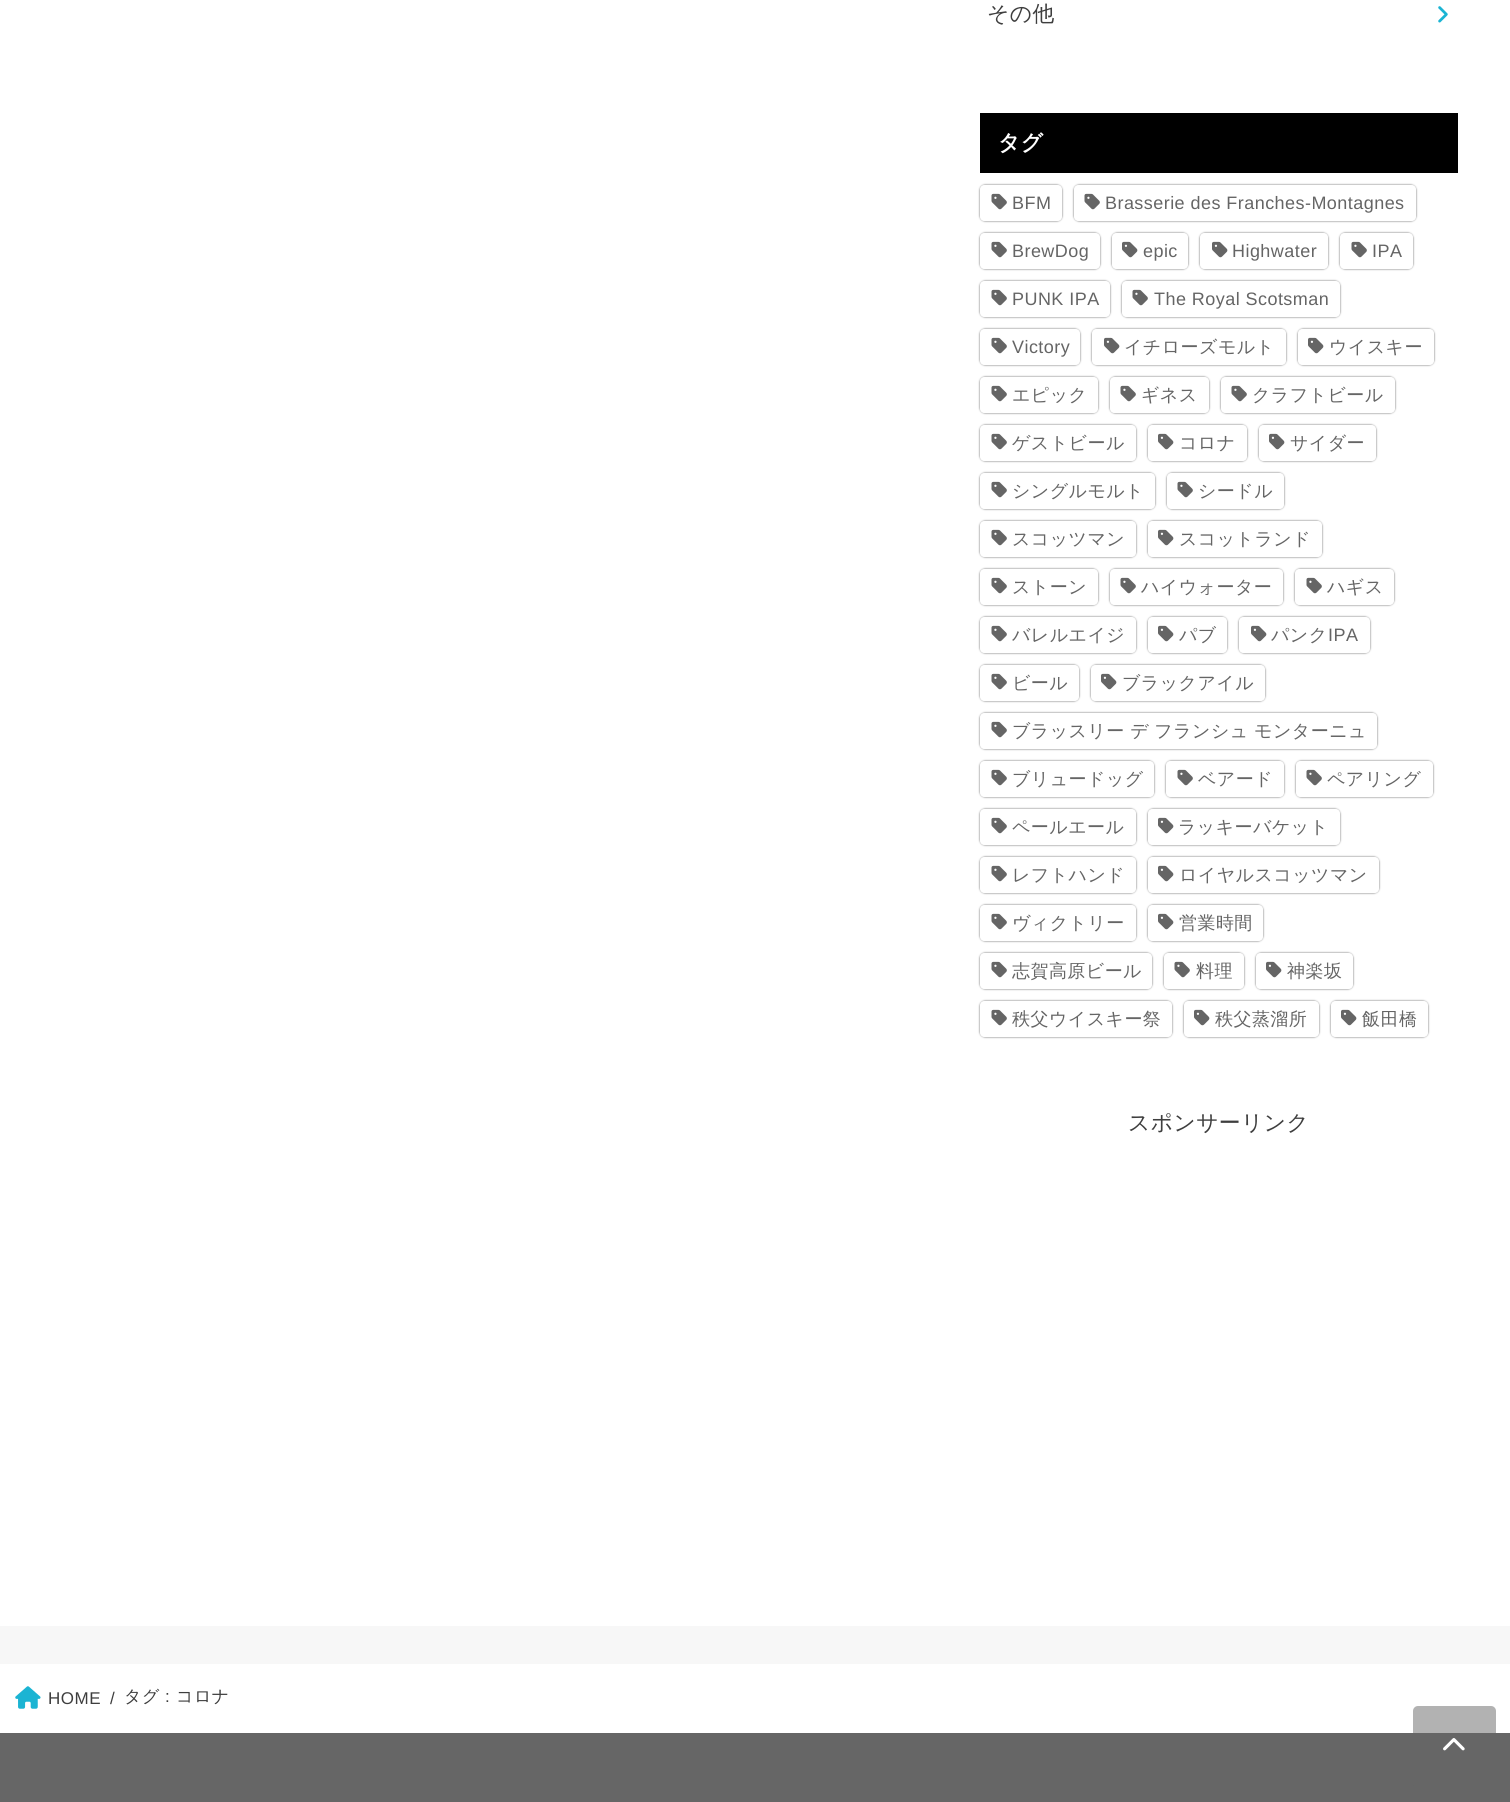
import math
import cairo

surface = cairo.ImageSurface(cairo.FORMAT_RGB24, 1510, 1802)
ctx = cairo.Context(surface)
options = cairo.FontOptions()
options.set_hint_metrics(cairo.HINT_METRICS_OFF)
options.set_hint_style(cairo.HINT_STYLE_NONE)
ctx.set_font_options(options)
ctx.set_miter_limit(4)


def set_color(code):
    ctx.set_source_rgb(*(v / 255 for v in bytes.fromhex(code[-6:])))


def draw_spaced(x, y, s, letter, word):
    ctx.move_to(x, y)
    for ch in s:
        ctx.show_text(ch)
        ctx.rel_move_to(letter + word * (ch == ' '), 0)


def fill_rect(x, y, w, h, color):
    set_color(color)
    ctx.rectangle(x, y, w, h)
    ctx.fill()


def rounded_rect(x, y, w, h, r):
    ctx.new_sub_path()
    for i, (u, v) in enumerate([(x + w - r, y + h - r), (x + r, y + h - r), (x + r, y + r), (x + w - r, y + r)]):
        ctx.arc(u, v, r, i * math.pi / 2, (i + 1) * math.pi / 2)
    ctx.close_path()


def draw_shadow(x, y, w, h, r, blur, alpha):
    ctx.push_group_with_content(cairo.CONTENT_ALPHA)
    ctx.set_operator(cairo.OPERATOR_SOURCE)
    for i in range(15, -16, -2):
        e = blur * i / 6
        if min(w, h) + 2 * e > 0:
            ctx.set_source_rgba(0, 0, 0, alpha * math.erfc((i - 1) / 8.5) / 2)
            rounded_rect(x - e, y - e, w + 2 * e, h + 2 * e, max(0, min(r + e + blur * .6, min(w, h) / 2 + e)))
            ctx.fill()
    ctx.mask(ctx.pop_group())


def draw_image(path, x, y, w, h):
    ctx.save()
    ctx.set_source_surface(cairo.ImageSurface.create_from_png(path), x, y)
    ctx.rectangle(x, y, w, h)
    ctx.fill()
    ctx.restore()


set_color("#f7f7f7")
ctx.paint()
fill_rect(0, 0, 1510, 1626, "#ffffff")
ctx.select_font_face("WenQuanYi Zen Hei Medium")
ctx.set_font_size(21.75)
set_color("#3e3e3e")
draw_spaced(987, 21, "その他", 0.5, 0)
draw_image("assets/img1.png", 1438, 6, 10, 17)
fill_rect(980, 113, 478, 60, "#000000")
ctx.select_font_face("WenQuanYi Zen Hei", cairo.FONT_SLANT_NORMAL, cairo.FONT_WEIGHT_BOLD)
set_color("#ffffff")
draw_spaced(998, 150, "タグ", 0.45, 0)
ctx.save()
ctx.set_fill_rule(cairo.FILL_RULE_EVEN_ODD)
ctx.new_path()
ctx.move_to(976, 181)
ctx.line_to(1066, 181)
ctx.line_to(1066, 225)
ctx.line_to(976, 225)
ctx.close_path()
ctx.move_to(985, 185)
ctx.line_to(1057, 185)
ctx.curve_to(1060, 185, 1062, 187, 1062, 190)
ctx.line_to(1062, 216)
ctx.curve_to(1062, 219, 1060, 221, 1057, 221)
ctx.line_to(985, 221)
ctx.curve_to(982, 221, 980, 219, 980, 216)
ctx.line_to(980, 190)
ctx.curve_to(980, 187, 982, 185, 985, 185)
ctx.close_path()
ctx.clip()
set_color("#656565")
draw_shadow(980, 185, 82, 36, 5, 1, 1)
ctx.restore()
draw_image("assets/img2.png", 991, 193, 16, 17)
ctx.select_font_face("Liberation Sans")
ctx.set_font_size(18)
set_color("#656565")
draw_spaced(1012, 209, "BFM", 0.45, 0)
ctx.save()
ctx.set_fill_rule(cairo.FILL_RULE_EVEN_ODD)
ctx.new_path()
ctx.move_to(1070, 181)
ctx.line_to(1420, 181)
ctx.line_to(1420, 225)
ctx.line_to(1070, 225)
ctx.close_path()
ctx.move_to(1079, 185)
ctx.line_to(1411, 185)
ctx.curve_to(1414, 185, 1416, 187, 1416, 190)
ctx.line_to(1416, 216)
ctx.curve_to(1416, 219, 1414, 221, 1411, 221)
ctx.line_to(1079, 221)
ctx.curve_to(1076, 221, 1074, 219, 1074, 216)
ctx.line_to(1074, 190)
ctx.curve_to(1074, 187, 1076, 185, 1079, 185)
ctx.close_path()
ctx.clip()
set_color("#656565")
draw_shadow(1074, 185, 342, 36, 5, 1, 1)
ctx.restore()
draw_image("assets/img2.png", 1084, 193, 16, 17)
draw_spaced(1105, 209, "Brasserie des Franches-Montagnes", 0.45, 0)
ctx.save()
ctx.set_fill_rule(cairo.FILL_RULE_EVEN_ODD)
ctx.new_path()
ctx.move_to(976, 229)
ctx.line_to(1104, 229)
ctx.line_to(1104, 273)
ctx.line_to(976, 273)
ctx.close_path()
ctx.move_to(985, 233)
ctx.line_to(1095, 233)
ctx.curve_to(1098, 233, 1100, 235, 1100, 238)
ctx.line_to(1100, 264)
ctx.curve_to(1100, 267, 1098, 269, 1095, 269)
ctx.line_to(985, 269)
ctx.curve_to(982, 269, 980, 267, 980, 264)
ctx.line_to(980, 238)
ctx.curve_to(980, 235, 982, 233, 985, 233)
ctx.close_path()
ctx.clip()
set_color("#656565")
draw_shadow(980, 233, 120, 36, 5, 1, 1)
ctx.restore()
draw_image("assets/img2.png", 991, 241, 16, 17)
draw_spaced(1012, 257, "BrewDog", 0.45, 0)
ctx.save()
ctx.set_fill_rule(cairo.FILL_RULE_EVEN_ODD)
ctx.new_path()
ctx.move_to(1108, 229)
ctx.line_to(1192, 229)
ctx.line_to(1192, 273)
ctx.line_to(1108, 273)
ctx.close_path()
ctx.move_to(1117, 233)
ctx.line_to(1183, 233)
ctx.curve_to(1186, 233, 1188, 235, 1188, 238)
ctx.line_to(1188, 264)
ctx.curve_to(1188, 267, 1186, 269, 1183, 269)
ctx.line_to(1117, 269)
ctx.curve_to(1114, 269, 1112, 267, 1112, 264)
ctx.line_to(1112, 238)
ctx.curve_to(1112, 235, 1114, 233, 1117, 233)
ctx.close_path()
ctx.clip()
set_color("#656565")
draw_shadow(1112, 233, 76, 36, 5, 1, 1)
ctx.restore()
draw_image("assets/img3.png", 1122, 241, 16, 17)
draw_spaced(1143, 257, "epic", 0.45, 0)
ctx.save()
ctx.set_fill_rule(cairo.FILL_RULE_EVEN_ODD)
ctx.new_path()
ctx.move_to(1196, 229)
ctx.line_to(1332, 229)
ctx.line_to(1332, 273)
ctx.line_to(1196, 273)
ctx.close_path()
ctx.move_to(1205, 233)
ctx.line_to(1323, 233)
ctx.curve_to(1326, 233, 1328, 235, 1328, 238)
ctx.line_to(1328, 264)
ctx.curve_to(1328, 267, 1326, 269, 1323, 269)
ctx.line_to(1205, 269)
ctx.curve_to(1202, 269, 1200, 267, 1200, 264)
ctx.line_to(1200, 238)
ctx.curve_to(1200, 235, 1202, 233, 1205, 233)
ctx.close_path()
ctx.clip()
set_color("#656565")
draw_shadow(1200, 233, 128, 36, 5, 1, 1)
ctx.restore()
draw_image("assets/img3.png", 1212, 241, 16, 17)
draw_spaced(1232, 257, "Highwater", 0.45, 0)
ctx.save()
ctx.set_fill_rule(cairo.FILL_RULE_EVEN_ODD)
ctx.new_path()
ctx.move_to(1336, 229)
ctx.line_to(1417, 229)
ctx.line_to(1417, 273)
ctx.line_to(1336, 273)
ctx.close_path()
ctx.move_to(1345, 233)
ctx.line_to(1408, 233)
ctx.curve_to(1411, 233, 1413, 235, 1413, 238)
ctx.line_to(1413, 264)
ctx.curve_to(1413, 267, 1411, 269, 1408, 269)
ctx.line_to(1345, 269)
ctx.curve_to(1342, 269, 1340, 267, 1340, 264)
ctx.line_to(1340, 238)
ctx.curve_to(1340, 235, 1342, 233, 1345, 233)
ctx.close_path()
ctx.clip()
set_color("#656565")
draw_shadow(1340, 233, 73, 36, 5, 1, 1)
ctx.restore()
draw_image("assets/img2.png", 1351, 241, 16, 17)
draw_spaced(1372, 257, "IPA", 0.45, 0)
ctx.save()
ctx.set_fill_rule(cairo.FILL_RULE_EVEN_ODD)
ctx.new_path()
ctx.move_to(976, 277)
ctx.line_to(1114, 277)
ctx.line_to(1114, 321)
ctx.line_to(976, 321)
ctx.close_path()
ctx.move_to(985, 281)
ctx.line_to(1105, 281)
ctx.curve_to(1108, 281, 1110, 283, 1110, 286)
ctx.line_to(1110, 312)
ctx.curve_to(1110, 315, 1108, 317, 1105, 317)
ctx.line_to(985, 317)
ctx.curve_to(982, 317, 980, 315, 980, 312)
ctx.line_to(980, 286)
ctx.curve_to(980, 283, 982, 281, 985, 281)
ctx.close_path()
ctx.clip()
set_color("#656565")
draw_shadow(980, 281, 130, 36, 5, 1, 1)
ctx.restore()
draw_image("assets/img2.png", 991, 289, 16, 17)
draw_spaced(1012, 305, "PUNK IPA", 0.45, 0)
ctx.save()
ctx.set_fill_rule(cairo.FILL_RULE_EVEN_ODD)
ctx.new_path()
ctx.move_to(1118, 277)
ctx.line_to(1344, 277)
ctx.line_to(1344, 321)
ctx.line_to(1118, 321)
ctx.close_path()
ctx.move_to(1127, 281)
ctx.line_to(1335, 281)
ctx.curve_to(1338, 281, 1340, 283, 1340, 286)
ctx.line_to(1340, 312)
ctx.curve_to(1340, 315, 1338, 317, 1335, 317)
ctx.line_to(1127, 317)
ctx.curve_to(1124, 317, 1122, 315, 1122, 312)
ctx.line_to(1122, 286)
ctx.curve_to(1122, 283, 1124, 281, 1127, 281)
ctx.close_path()
ctx.clip()
set_color("#656565")
draw_shadow(1122, 281, 218, 36, 5, 1, 1)
ctx.restore()
draw_image("assets/img2.png", 1132, 289, 16, 17)
draw_spaced(1154, 305, "The Royal Scotsman", 0.45, 0)
ctx.save()
ctx.set_fill_rule(cairo.FILL_RULE_EVEN_ODD)
ctx.new_path()
ctx.move_to(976, 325)
ctx.line_to(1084, 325)
ctx.line_to(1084, 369)
ctx.line_to(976, 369)
ctx.close_path()
ctx.move_to(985, 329)
ctx.line_to(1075, 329)
ctx.curve_to(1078, 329, 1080, 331, 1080, 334)
ctx.line_to(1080, 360)
ctx.curve_to(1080, 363, 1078, 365, 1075, 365)
ctx.line_to(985, 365)
ctx.curve_to(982, 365, 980, 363, 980, 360)
ctx.line_to(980, 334)
ctx.curve_to(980, 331, 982, 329, 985, 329)
ctx.close_path()
ctx.clip()
set_color("#656565")
draw_shadow(980, 329, 100, 36, 5, 1, 1)
ctx.restore()
draw_image("assets/img2.png", 991, 337, 16, 17)
draw_spaced(1012, 353, "Victory", 0.45, 0)
ctx.save()
ctx.set_fill_rule(cairo.FILL_RULE_EVEN_ODD)
ctx.new_path()
ctx.move_to(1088, 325)
ctx.line_to(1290, 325)
ctx.line_to(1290, 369)
ctx.line_to(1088, 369)
ctx.close_path()
ctx.move_to(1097, 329)
ctx.line_to(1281, 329)
ctx.curve_to(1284, 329, 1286, 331, 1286, 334)
ctx.line_to(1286, 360)
ctx.curve_to(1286, 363, 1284, 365, 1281, 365)
ctx.line_to(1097, 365)
ctx.curve_to(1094, 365, 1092, 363, 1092, 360)
ctx.line_to(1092, 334)
ctx.curve_to(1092, 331, 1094, 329, 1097, 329)
ctx.close_path()
ctx.clip()
set_color("#656565")
draw_shadow(1092, 329, 194, 36, 5, 1, 1)
ctx.restore()
draw_image("assets/img3.png", 1104, 337, 16, 17)
ctx.select_font_face("WenQuanYi Zen Hei Medium")
draw_spaced(1124, 353, "イチローズモルト", 0.45, 0)
ctx.save()
ctx.set_fill_rule(cairo.FILL_RULE_EVEN_ODD)
ctx.new_path()
ctx.move_to(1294, 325)
ctx.line_to(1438, 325)
ctx.line_to(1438, 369)
ctx.line_to(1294, 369)
ctx.close_path()
ctx.move_to(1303, 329)
ctx.line_to(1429, 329)
ctx.curve_to(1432, 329, 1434, 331, 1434, 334)
ctx.line_to(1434, 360)
ctx.curve_to(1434, 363, 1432, 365, 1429, 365)
ctx.line_to(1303, 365)
ctx.curve_to(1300, 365, 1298, 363, 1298, 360)
ctx.line_to(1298, 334)
ctx.curve_to(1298, 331, 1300, 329, 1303, 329)
ctx.close_path()
ctx.clip()
set_color("#656565")
draw_shadow(1298, 329, 136, 36, 5, 1, 1)
ctx.restore()
draw_image("assets/img3.png", 1308, 337, 16, 17)
draw_spaced(1329, 353, "ウイスキー", 0.45, 0)
ctx.save()
ctx.set_fill_rule(cairo.FILL_RULE_EVEN_ODD)
ctx.new_path()
ctx.move_to(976, 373)
ctx.line_to(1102, 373)
ctx.line_to(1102, 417)
ctx.line_to(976, 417)
ctx.close_path()
ctx.move_to(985, 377)
ctx.line_to(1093, 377)
ctx.curve_to(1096, 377, 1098, 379, 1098, 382)
ctx.line_to(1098, 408)
ctx.curve_to(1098, 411, 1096, 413, 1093, 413)
ctx.line_to(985, 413)
ctx.curve_to(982, 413, 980, 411, 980, 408)
ctx.line_to(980, 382)
ctx.curve_to(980, 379, 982, 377, 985, 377)
ctx.close_path()
ctx.clip()
set_color("#656565")
draw_shadow(980, 377, 118, 36, 5, 1, 1)
ctx.restore()
draw_image("assets/img2.png", 991, 385, 16, 17)
draw_spaced(1012, 401, "エピック", 0.45, 0)
ctx.save()
ctx.set_fill_rule(cairo.FILL_RULE_EVEN_ODD)
ctx.new_path()
ctx.move_to(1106, 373)
ctx.line_to(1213, 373)
ctx.line_to(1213, 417)
ctx.line_to(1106, 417)
ctx.close_path()
ctx.move_to(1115, 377)
ctx.line_to(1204, 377)
ctx.curve_to(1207, 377, 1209, 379, 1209, 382)
ctx.line_to(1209, 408)
ctx.curve_to(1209, 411, 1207, 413, 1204, 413)
ctx.line_to(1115, 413)
ctx.curve_to(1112, 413, 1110, 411, 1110, 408)
ctx.line_to(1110, 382)
ctx.curve_to(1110, 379, 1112, 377, 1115, 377)
ctx.close_path()
ctx.clip()
set_color("#656565")
draw_shadow(1110, 377, 99, 36, 5, 1, 1)
ctx.restore()
draw_image("assets/img2.png", 1120, 385, 16, 17)
draw_spaced(1141, 401, "ギネス", 0.45, 0)
ctx.save()
ctx.set_fill_rule(cairo.FILL_RULE_EVEN_ODD)
ctx.new_path()
ctx.move_to(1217, 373)
ctx.line_to(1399, 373)
ctx.line_to(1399, 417)
ctx.line_to(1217, 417)
ctx.close_path()
ctx.move_to(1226, 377)
ctx.line_to(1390, 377)
ctx.curve_to(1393, 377, 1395, 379, 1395, 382)
ctx.line_to(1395, 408)
ctx.curve_to(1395, 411, 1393, 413, 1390, 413)
ctx.line_to(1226, 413)
ctx.curve_to(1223, 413, 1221, 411, 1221, 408)
ctx.line_to(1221, 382)
ctx.curve_to(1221, 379, 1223, 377, 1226, 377)
ctx.close_path()
ctx.clip()
set_color("#656565")
draw_shadow(1221, 377, 174, 36, 5, 1, 1)
ctx.restore()
draw_image("assets/img2.png", 1231, 385, 16, 17)
draw_spaced(1252, 401, "クラフトビール", 0.45, 0)
ctx.save()
ctx.set_fill_rule(cairo.FILL_RULE_EVEN_ODD)
ctx.new_path()
ctx.move_to(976, 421)
ctx.line_to(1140, 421)
ctx.line_to(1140, 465)
ctx.line_to(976, 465)
ctx.close_path()
ctx.move_to(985, 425)
ctx.line_to(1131, 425)
ctx.curve_to(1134, 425, 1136, 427, 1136, 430)
ctx.line_to(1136, 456)
ctx.curve_to(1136, 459, 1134, 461, 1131, 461)
ctx.line_to(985, 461)
ctx.curve_to(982, 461, 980, 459, 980, 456)
ctx.line_to(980, 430)
ctx.curve_to(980, 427, 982, 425, 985, 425)
ctx.close_path()
ctx.clip()
set_color("#656565")
draw_shadow(980, 425, 156, 36, 5, 1, 1)
ctx.restore()
draw_image("assets/img2.png", 991, 433, 16, 17)
draw_spaced(1012, 449, "ゲストビール", 0.45, 0)
ctx.save()
ctx.set_fill_rule(cairo.FILL_RULE_EVEN_ODD)
ctx.new_path()
ctx.move_to(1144, 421)
ctx.line_to(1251, 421)
ctx.line_to(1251, 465)
ctx.line_to(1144, 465)
ctx.close_path()
ctx.move_to(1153, 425)
ctx.line_to(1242, 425)
ctx.curve_to(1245, 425, 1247, 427, 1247, 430)
ctx.line_to(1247, 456)
ctx.curve_to(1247, 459, 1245, 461, 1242, 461)
ctx.line_to(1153, 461)
ctx.curve_to(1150, 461, 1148, 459, 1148, 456)
ctx.line_to(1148, 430)
ctx.curve_to(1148, 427, 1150, 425, 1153, 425)
ctx.close_path()
ctx.clip()
set_color("#656565")
draw_shadow(1148, 425, 99, 36, 5, 1, 1)
ctx.restore()
draw_image("assets/img3.png", 1158, 433, 16, 17)
draw_spaced(1179, 449, "コロナ", 0.45, 0)
ctx.save()
ctx.set_fill_rule(cairo.FILL_RULE_EVEN_ODD)
ctx.new_path()
ctx.move_to(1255, 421)
ctx.line_to(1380, 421)
ctx.line_to(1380, 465)
ctx.line_to(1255, 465)
ctx.close_path()
ctx.move_to(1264, 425)
ctx.line_to(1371, 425)
ctx.curve_to(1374, 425, 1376, 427, 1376, 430)
ctx.line_to(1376, 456)
ctx.curve_to(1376, 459, 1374, 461, 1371, 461)
ctx.line_to(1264, 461)
ctx.curve_to(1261, 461, 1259, 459, 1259, 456)
ctx.line_to(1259, 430)
ctx.curve_to(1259, 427, 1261, 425, 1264, 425)
ctx.close_path()
ctx.clip()
set_color("#656565")
draw_shadow(1259, 425, 117, 36, 5, 1, 1)
ctx.restore()
draw_image("assets/img3.png", 1269, 433, 16, 17)
draw_spaced(1290, 449, "サイダー", 0.45, 0)
ctx.save()
ctx.set_fill_rule(cairo.FILL_RULE_EVEN_ODD)
ctx.new_path()
ctx.move_to(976, 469)
ctx.line_to(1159, 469)
ctx.line_to(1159, 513)
ctx.line_to(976, 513)
ctx.close_path()
ctx.move_to(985, 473)
ctx.line_to(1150, 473)
ctx.curve_to(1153, 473, 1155, 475, 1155, 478)
ctx.line_to(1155, 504)
ctx.curve_to(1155, 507, 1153, 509, 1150, 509)
ctx.line_to(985, 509)
ctx.curve_to(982, 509, 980, 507, 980, 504)
ctx.line_to(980, 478)
ctx.curve_to(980, 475, 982, 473, 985, 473)
ctx.close_path()
ctx.clip()
set_color("#656565")
draw_shadow(980, 473, 175, 36, 5, 1, 1)
ctx.restore()
draw_image("assets/img2.png", 991, 481, 16, 17)
draw_spaced(1012, 497, "シングルモルト", 0.45, 0)
ctx.save()
ctx.set_fill_rule(cairo.FILL_RULE_EVEN_ODD)
ctx.new_path()
ctx.move_to(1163, 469)
ctx.line_to(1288, 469)
ctx.line_to(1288, 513)
ctx.line_to(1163, 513)
ctx.close_path()
ctx.move_to(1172, 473)
ctx.line_to(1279, 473)
ctx.curve_to(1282, 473, 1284, 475, 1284, 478)
ctx.line_to(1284, 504)
ctx.curve_to(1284, 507, 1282, 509, 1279, 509)
ctx.line_to(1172, 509)
ctx.curve_to(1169, 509, 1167, 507, 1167, 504)
ctx.line_to(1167, 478)
ctx.curve_to(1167, 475, 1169, 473, 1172, 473)
ctx.close_path()
ctx.clip()
set_color("#656565")
draw_shadow(1167, 473, 117, 36, 5, 1, 1)
ctx.restore()
draw_image("assets/img2.png", 1177, 481, 16, 17)
draw_spaced(1198, 497, "シードル", 0.45, 0)
ctx.save()
ctx.set_fill_rule(cairo.FILL_RULE_EVEN_ODD)
ctx.new_path()
ctx.move_to(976, 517)
ctx.line_to(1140, 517)
ctx.line_to(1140, 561)
ctx.line_to(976, 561)
ctx.close_path()
ctx.move_to(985, 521)
ctx.line_to(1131, 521)
ctx.curve_to(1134, 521, 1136, 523, 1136, 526)
ctx.line_to(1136, 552)
ctx.curve_to(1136, 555, 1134, 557, 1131, 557)
ctx.line_to(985, 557)
ctx.curve_to(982, 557, 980, 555, 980, 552)
ctx.line_to(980, 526)
ctx.curve_to(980, 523, 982, 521, 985, 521)
ctx.close_path()
ctx.clip()
set_color("#656565")
draw_shadow(980, 521, 156, 36, 5, 1, 1)
ctx.restore()
draw_image("assets/img2.png", 991, 529, 16, 17)
draw_spaced(1012, 545, "スコッツマン", 0.45, 0)
ctx.save()
ctx.set_fill_rule(cairo.FILL_RULE_EVEN_ODD)
ctx.new_path()
ctx.move_to(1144, 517)
ctx.line_to(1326, 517)
ctx.line_to(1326, 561)
ctx.line_to(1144, 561)
ctx.close_path()
ctx.move_to(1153, 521)
ctx.line_to(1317, 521)
ctx.curve_to(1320, 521, 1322, 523, 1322, 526)
ctx.line_to(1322, 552)
ctx.curve_to(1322, 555, 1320, 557, 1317, 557)
ctx.line_to(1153, 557)
ctx.curve_to(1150, 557, 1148, 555, 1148, 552)
ctx.line_to(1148, 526)
ctx.curve_to(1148, 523, 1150, 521, 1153, 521)
ctx.close_path()
ctx.clip()
set_color("#656565")
draw_shadow(1148, 521, 174, 36, 5, 1, 1)
ctx.restore()
draw_image("assets/img3.png", 1158, 529, 16, 17)
draw_spaced(1179, 545, "スコットランド", 0.45, 0)
ctx.save()
ctx.set_fill_rule(cairo.FILL_RULE_EVEN_ODD)
ctx.new_path()
ctx.move_to(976, 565)
ctx.line_to(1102, 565)
ctx.line_to(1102, 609)
ctx.line_to(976, 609)
ctx.close_path()
ctx.move_to(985, 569)
ctx.line_to(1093, 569)
ctx.curve_to(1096, 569, 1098, 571, 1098, 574)
ctx.line_to(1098, 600)
ctx.curve_to(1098, 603, 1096, 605, 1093, 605)
ctx.line_to(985, 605)
ctx.curve_to(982, 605, 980, 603, 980, 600)
ctx.line_to(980, 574)
ctx.curve_to(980, 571, 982, 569, 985, 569)
ctx.close_path()
ctx.clip()
set_color("#656565")
draw_shadow(980, 569, 118, 36, 5, 1, 1)
ctx.restore()
draw_image("assets/img2.png", 991, 577, 16, 17)
draw_spaced(1012, 593, "ストーン", 0.45, 0)
ctx.save()
ctx.set_fill_rule(cairo.FILL_RULE_EVEN_ODD)
ctx.new_path()
ctx.move_to(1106, 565)
ctx.line_to(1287, 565)
ctx.line_to(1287, 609)
ctx.line_to(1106, 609)
ctx.close_path()
ctx.move_to(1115, 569)
ctx.line_to(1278, 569)
ctx.curve_to(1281, 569, 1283, 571, 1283, 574)
ctx.line_to(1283, 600)
ctx.curve_to(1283, 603, 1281, 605, 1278, 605)
ctx.line_to(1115, 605)
ctx.curve_to(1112, 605, 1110, 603, 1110, 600)
ctx.line_to(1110, 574)
ctx.curve_to(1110, 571, 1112, 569, 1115, 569)
ctx.close_path()
ctx.clip()
set_color("#656565")
draw_shadow(1110, 569, 173, 36, 5, 1, 1)
ctx.restore()
draw_image("assets/img2.png", 1120, 577, 16, 17)
draw_spaced(1141, 593, "ハイウォーター", 0.45, 0)
ctx.save()
ctx.set_fill_rule(cairo.FILL_RULE_EVEN_ODD)
ctx.new_path()
ctx.move_to(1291, 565)
ctx.line_to(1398, 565)
ctx.line_to(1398, 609)
ctx.line_to(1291, 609)
ctx.close_path()
ctx.move_to(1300, 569)
ctx.line_to(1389, 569)
ctx.curve_to(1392, 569, 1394, 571, 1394, 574)
ctx.line_to(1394, 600)
ctx.curve_to(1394, 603, 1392, 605, 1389, 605)
ctx.line_to(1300, 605)
ctx.curve_to(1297, 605, 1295, 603, 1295, 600)
ctx.line_to(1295, 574)
ctx.curve_to(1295, 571, 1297, 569, 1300, 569)
ctx.close_path()
ctx.clip()
set_color("#656565")
draw_shadow(1295, 569, 99, 36, 5, 1, 1)
ctx.restore()
draw_image("assets/img2.png", 1306, 577, 16, 17)
draw_spaced(1327, 593, "ハギス", 0.45, 0)
ctx.save()
ctx.set_fill_rule(cairo.FILL_RULE_EVEN_ODD)
ctx.new_path()
ctx.move_to(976, 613)
ctx.line_to(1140, 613)
ctx.line_to(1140, 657)
ctx.line_to(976, 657)
ctx.close_path()
ctx.move_to(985, 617)
ctx.line_to(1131, 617)
ctx.curve_to(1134, 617, 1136, 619, 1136, 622)
ctx.line_to(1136, 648)
ctx.curve_to(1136, 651, 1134, 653, 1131, 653)
ctx.line_to(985, 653)
ctx.curve_to(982, 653, 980, 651, 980, 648)
ctx.line_to(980, 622)
ctx.curve_to(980, 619, 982, 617, 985, 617)
ctx.close_path()
ctx.clip()
set_color("#656565")
draw_shadow(980, 617, 156, 36, 5, 1, 1)
ctx.restore()
draw_image("assets/img2.png", 991, 625, 16, 17)
draw_spaced(1012, 641, "バレルエイジ", 0.45, 0)
ctx.save()
ctx.set_fill_rule(cairo.FILL_RULE_EVEN_ODD)
ctx.new_path()
ctx.move_to(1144, 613)
ctx.line_to(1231, 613)
ctx.line_to(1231, 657)
ctx.line_to(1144, 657)
ctx.close_path()
ctx.move_to(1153, 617)
ctx.line_to(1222, 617)
ctx.curve_to(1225, 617, 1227, 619, 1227, 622)
ctx.line_to(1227, 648)
ctx.curve_to(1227, 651, 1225, 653, 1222, 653)
ctx.line_to(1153, 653)
ctx.curve_to(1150, 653, 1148, 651, 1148, 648)
ctx.line_to(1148, 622)
ctx.curve_to(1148, 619, 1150, 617, 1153, 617)
ctx.close_path()
ctx.clip()
set_color("#656565")
draw_shadow(1148, 617, 79, 36, 5, 1, 1)
ctx.restore()
draw_image("assets/img3.png", 1158, 625, 16, 17)
draw_spaced(1179, 641, "パブ", 0.45, 0)
ctx.save()
ctx.set_fill_rule(cairo.FILL_RULE_EVEN_ODD)
ctx.new_path()
ctx.move_to(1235, 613)
ctx.line_to(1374, 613)
ctx.line_to(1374, 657)
ctx.line_to(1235, 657)
ctx.close_path()
ctx.move_to(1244, 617)
ctx.line_to(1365, 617)
ctx.curve_to(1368, 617, 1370, 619, 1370, 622)
ctx.line_to(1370, 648)
ctx.curve_to(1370, 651, 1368, 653, 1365, 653)
ctx.line_to(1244, 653)
ctx.curve_to(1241, 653, 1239, 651, 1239, 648)
ctx.line_to(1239, 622)
ctx.curve_to(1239, 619, 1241, 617, 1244, 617)
ctx.close_path()
ctx.clip()
set_color("#656565")
draw_shadow(1239, 617, 131, 36, 5, 1, 1)
ctx.restore()
draw_image("assets/img3.png", 1251, 625, 16, 17)
draw_spaced(1271, 641, "パンク", 0.45, 0)
ctx.select_font_face("Liberation Sans")
draw_spaced(1328, 641, "IPA", 0.45, 0)
ctx.save()
ctx.set_fill_rule(cairo.FILL_RULE_EVEN_ODD)
ctx.new_path()
ctx.move_to(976, 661)
ctx.line_to(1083, 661)
ctx.line_to(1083, 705)
ctx.line_to(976, 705)
ctx.close_path()
ctx.move_to(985, 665)
ctx.line_to(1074, 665)
ctx.curve_to(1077, 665, 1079, 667, 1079, 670)
ctx.line_to(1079, 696)
ctx.curve_to(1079, 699, 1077, 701, 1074, 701)
ctx.line_to(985, 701)
ctx.curve_to(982, 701, 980, 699, 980, 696)
ctx.line_to(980, 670)
ctx.curve_to(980, 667, 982, 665, 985, 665)
ctx.close_path()
ctx.clip()
set_color("#656565")
draw_shadow(980, 665, 99, 36, 5, 1, 1)
ctx.restore()
draw_image("assets/img2.png", 991, 673, 16, 17)
ctx.select_font_face("WenQuanYi Zen Hei Medium")
draw_spaced(1012, 689, "ビール", 0.45, 0)
ctx.save()
ctx.set_fill_rule(cairo.FILL_RULE_EVEN_ODD)
ctx.new_path()
ctx.move_to(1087, 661)
ctx.line_to(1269, 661)
ctx.line_to(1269, 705)
ctx.line_to(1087, 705)
ctx.close_path()
ctx.move_to(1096, 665)
ctx.line_to(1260, 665)
ctx.curve_to(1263, 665, 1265, 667, 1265, 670)
ctx.line_to(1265, 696)
ctx.curve_to(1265, 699, 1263, 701, 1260, 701)
ctx.line_to(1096, 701)
ctx.curve_to(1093, 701, 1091, 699, 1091, 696)
ctx.line_to(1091, 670)
ctx.curve_to(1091, 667, 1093, 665, 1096, 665)
ctx.close_path()
ctx.clip()
set_color("#656565")
draw_shadow(1091, 665, 174, 36, 5, 1, 1)
ctx.restore()
draw_image("assets/img3.png", 1101, 673, 16, 17)
draw_spaced(1122, 689, "ブラックアイル", 0.45, 0)
ctx.save()
ctx.set_fill_rule(cairo.FILL_RULE_EVEN_ODD)
ctx.new_path()
ctx.move_to(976, 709)
ctx.line_to(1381, 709)
ctx.line_to(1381, 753)
ctx.line_to(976, 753)
ctx.close_path()
ctx.move_to(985, 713)
ctx.line_to(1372, 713)
ctx.curve_to(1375, 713, 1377, 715, 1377, 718)
ctx.line_to(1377, 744)
ctx.curve_to(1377, 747, 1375, 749, 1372, 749)
ctx.line_to(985, 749)
ctx.curve_to(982, 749, 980, 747, 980, 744)
ctx.line_to(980, 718)
ctx.curve_to(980, 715, 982, 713, 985, 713)
ctx.close_path()
ctx.clip()
set_color("#656565")
draw_shadow(980, 713, 397, 36, 5, 1, 1)
ctx.restore()
draw_image("assets/img2.png", 991, 721, 16, 17)
draw_spaced(1012, 737, "ブラッスリー デ フランシュ モンターニュ", 0.45, -0.5)
ctx.save()
ctx.set_fill_rule(cairo.FILL_RULE_EVEN_ODD)
ctx.new_path()
ctx.move_to(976, 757)
ctx.line_to(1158, 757)
ctx.line_to(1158, 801)
ctx.line_to(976, 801)
ctx.close_path()
ctx.move_to(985, 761)
ctx.line_to(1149, 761)
ctx.curve_to(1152, 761, 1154, 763, 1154, 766)
ctx.line_to(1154, 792)
ctx.curve_to(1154, 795, 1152, 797, 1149, 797)
ctx.line_to(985, 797)
ctx.curve_to(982, 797, 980, 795, 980, 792)
ctx.line_to(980, 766)
ctx.curve_to(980, 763, 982, 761, 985, 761)
ctx.close_path()
ctx.clip()
set_color("#656565")
draw_shadow(980, 761, 174, 36, 5, 1, 1)
ctx.restore()
draw_image("assets/img2.png", 991, 769, 16, 17)
draw_spaced(1012, 785, "ブリュードッグ", 0.45, 0)
ctx.save()
ctx.set_fill_rule(cairo.FILL_RULE_EVEN_ODD)
ctx.new_path()
ctx.move_to(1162, 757)
ctx.line_to(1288, 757)
ctx.line_to(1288, 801)
ctx.line_to(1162, 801)
ctx.close_path()
ctx.move_to(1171, 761)
ctx.line_to(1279, 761)
ctx.curve_to(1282, 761, 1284, 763, 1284, 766)
ctx.line_to(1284, 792)
ctx.curve_to(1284, 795, 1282, 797, 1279, 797)
ctx.line_to(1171, 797)
ctx.curve_to(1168, 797, 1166, 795, 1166, 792)
ctx.line_to(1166, 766)
ctx.curve_to(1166, 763, 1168, 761, 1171, 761)
ctx.close_path()
ctx.clip()
set_color("#656565")
draw_shadow(1166, 761, 118, 36, 5, 1, 1)
ctx.restore()
draw_image("assets/img2.png", 1177, 769, 16, 17)
draw_spaced(1198, 785, "ベアード", 0.45, 0)
ctx.save()
ctx.set_fill_rule(cairo.FILL_RULE_EVEN_ODD)
ctx.new_path()
ctx.move_to(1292, 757)
ctx.line_to(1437, 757)
ctx.line_to(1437, 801)
ctx.line_to(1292, 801)
ctx.close_path()
ctx.move_to(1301, 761)
ctx.line_to(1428, 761)
ctx.curve_to(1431, 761, 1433, 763, 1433, 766)
ctx.line_to(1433, 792)
ctx.curve_to(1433, 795, 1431, 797, 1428, 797)
ctx.line_to(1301, 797)
ctx.curve_to(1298, 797, 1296, 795, 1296, 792)
ctx.line_to(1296, 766)
ctx.curve_to(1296, 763, 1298, 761, 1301, 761)
ctx.close_path()
ctx.clip()
set_color("#656565")
draw_shadow(1296, 761, 137, 36, 5, 1, 1)
ctx.restore()
draw_image("assets/img2.png", 1306, 769, 16, 17)
draw_spaced(1327, 785, "ペアリング", 0.45, 0)
ctx.save()
ctx.set_fill_rule(cairo.FILL_RULE_EVEN_ODD)
ctx.new_path()
ctx.move_to(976, 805)
ctx.line_to(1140, 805)
ctx.line_to(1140, 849)
ctx.line_to(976, 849)
ctx.close_path()
ctx.move_to(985, 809)
ctx.line_to(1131, 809)
ctx.curve_to(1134, 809, 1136, 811, 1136, 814)
ctx.line_to(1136, 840)
ctx.curve_to(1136, 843, 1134, 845, 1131, 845)
ctx.line_to(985, 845)
ctx.curve_to(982, 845, 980, 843, 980, 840)
ctx.line_to(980, 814)
ctx.curve_to(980, 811, 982, 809, 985, 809)
ctx.close_path()
ctx.clip()
set_color("#656565")
draw_shadow(980, 809, 156, 36, 5, 1, 1)
ctx.restore()
draw_image("assets/img2.png", 991, 817, 16, 17)
draw_spaced(1012, 833, "ペールエール", 0.45, 0)
ctx.save()
ctx.set_fill_rule(cairo.FILL_RULE_EVEN_ODD)
ctx.new_path()
ctx.move_to(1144, 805)
ctx.line_to(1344, 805)
ctx.line_to(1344, 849)
ctx.line_to(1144, 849)
ctx.close_path()
ctx.move_to(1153, 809)
ctx.line_to(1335, 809)
ctx.curve_to(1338, 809, 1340, 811, 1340, 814)
ctx.line_to(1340, 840)
ctx.curve_to(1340, 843, 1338, 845, 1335, 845)
ctx.line_to(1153, 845)
ctx.curve_to(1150, 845, 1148, 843, 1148, 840)
ctx.line_to(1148, 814)
ctx.curve_to(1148, 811, 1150, 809, 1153, 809)
ctx.close_path()
ctx.clip()
set_color("#656565")
draw_shadow(1148, 809, 192, 36, 5, 1, 1)
ctx.restore()
draw_image("assets/img3.png", 1158, 817, 16, 17)
draw_spaced(1178, 833, "ラッキーバケット", 0.45, 0)
ctx.save()
ctx.set_fill_rule(cairo.FILL_RULE_EVEN_ODD)
ctx.new_path()
ctx.move_to(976, 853)
ctx.line_to(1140, 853)
ctx.line_to(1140, 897)
ctx.line_to(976, 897)
ctx.close_path()
ctx.move_to(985, 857)
ctx.line_to(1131, 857)
ctx.curve_to(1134, 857, 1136, 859, 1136, 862)
ctx.line_to(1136, 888)
ctx.curve_to(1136, 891, 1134, 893, 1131, 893)
ctx.line_to(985, 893)
ctx.curve_to(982, 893, 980, 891, 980, 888)
ctx.line_to(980, 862)
ctx.curve_to(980, 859, 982, 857, 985, 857)
ctx.close_path()
ctx.clip()
set_color("#656565")
draw_shadow(980, 857, 156, 36, 5, 1, 1)
ctx.restore()
draw_image("assets/img2.png", 991, 865, 16, 17)
draw_spaced(1012, 881, "レフトハンド", 0.45, 0)
ctx.save()
ctx.set_fill_rule(cairo.FILL_RULE_EVEN_ODD)
ctx.new_path()
ctx.move_to(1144, 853)
ctx.line_to(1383, 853)
ctx.line_to(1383, 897)
ctx.line_to(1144, 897)
ctx.close_path()
ctx.move_to(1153, 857)
ctx.line_to(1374, 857)
ctx.curve_to(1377, 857, 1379, 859, 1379, 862)
ctx.line_to(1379, 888)
ctx.curve_to(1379, 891, 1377, 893, 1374, 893)
ctx.line_to(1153, 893)
ctx.curve_to(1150, 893, 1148, 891, 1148, 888)
ctx.line_to(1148, 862)
ctx.curve_to(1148, 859, 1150, 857, 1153, 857)
ctx.close_path()
ctx.clip()
set_color("#656565")
draw_shadow(1148, 857, 231, 36, 5, 1, 1)
ctx.restore()
draw_image("assets/img3.png", 1158, 865, 16, 17)
draw_spaced(1179, 881, "ロイヤルスコッツマン", 0.45, 0)
ctx.save()
ctx.set_fill_rule(cairo.FILL_RULE_EVEN_ODD)
ctx.new_path()
ctx.move_to(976, 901)
ctx.line_to(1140, 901)
ctx.line_to(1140, 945)
ctx.line_to(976, 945)
ctx.close_path()
ctx.move_to(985, 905)
ctx.line_to(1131, 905)
ctx.curve_to(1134, 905, 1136, 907, 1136, 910)
ctx.line_to(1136, 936)
ctx.curve_to(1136, 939, 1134, 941, 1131, 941)
ctx.line_to(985, 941)
ctx.curve_to(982, 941, 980, 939, 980, 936)
ctx.line_to(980, 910)
ctx.curve_to(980, 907, 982, 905, 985, 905)
ctx.close_path()
ctx.clip()
set_color("#656565")
draw_shadow(980, 905, 156, 36, 5, 1, 1)
ctx.restore()
draw_image("assets/img2.png", 991, 913, 16, 17)
draw_spaced(1012, 929, "ヴィクトリー", 0.45, 0)
ctx.save()
ctx.set_fill_rule(cairo.FILL_RULE_EVEN_ODD)
ctx.new_path()
ctx.move_to(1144, 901)
ctx.line_to(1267, 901)
ctx.line_to(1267, 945)
ctx.line_to(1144, 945)
ctx.close_path()
ctx.move_to(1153, 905)
ctx.line_to(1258, 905)
ctx.curve_to(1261, 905, 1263, 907, 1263, 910)
ctx.line_to(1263, 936)
ctx.curve_to(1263, 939, 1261, 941, 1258, 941)
ctx.line_to(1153, 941)
ctx.curve_to(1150, 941, 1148, 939, 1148, 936)
ctx.line_to(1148, 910)
ctx.curve_to(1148, 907, 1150, 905, 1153, 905)
ctx.close_path()
ctx.clip()
set_color("#656565")
draw_shadow(1148, 905, 115, 36, 5, 1, 1)
ctx.restore()
draw_image("assets/img3.png", 1158, 913, 16, 17)
draw_spaced(1179, 929, "営業時間", 0.45, 0)
ctx.save()
ctx.set_fill_rule(cairo.FILL_RULE_EVEN_ODD)
ctx.new_path()
ctx.move_to(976, 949)
ctx.line_to(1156, 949)
ctx.line_to(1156, 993)
ctx.line_to(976, 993)
ctx.close_path()
ctx.move_to(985, 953)
ctx.line_to(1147, 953)
ctx.curve_to(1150, 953, 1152, 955, 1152, 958)
ctx.line_to(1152, 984)
ctx.curve_to(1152, 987, 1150, 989, 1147, 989)
ctx.line_to(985, 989)
ctx.curve_to(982, 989, 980, 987, 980, 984)
ctx.line_to(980, 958)
ctx.curve_to(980, 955, 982, 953, 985, 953)
ctx.close_path()
ctx.clip()
set_color("#656565")
draw_shadow(980, 953, 172, 36, 5, 1, 1)
ctx.restore()
draw_image("assets/img2.png", 991, 961, 16, 17)
draw_spaced(1012, 977, "志賀高原ビール", 0.45, 0)
ctx.save()
ctx.set_fill_rule(cairo.FILL_RULE_EVEN_ODD)
ctx.new_path()
ctx.move_to(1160, 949)
ctx.line_to(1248, 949)
ctx.line_to(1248, 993)
ctx.line_to(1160, 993)
ctx.close_path()
ctx.move_to(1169, 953)
ctx.line_to(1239, 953)
ctx.curve_to(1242, 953, 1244, 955, 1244, 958)
ctx.line_to(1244, 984)
ctx.curve_to(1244, 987, 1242, 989, 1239, 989)
ctx.line_to(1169, 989)
ctx.curve_to(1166, 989, 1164, 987, 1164, 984)
ctx.line_to(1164, 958)
ctx.curve_to(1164, 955, 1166, 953, 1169, 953)
ctx.close_path()
ctx.clip()
set_color("#656565")
draw_shadow(1164, 953, 80, 36, 5, 1, 1)
ctx.restore()
draw_image("assets/img2.png", 1174, 961, 16, 17)
draw_spaced(1196, 977, "料理", 0.45, 0)
ctx.save()
ctx.set_fill_rule(cairo.FILL_RULE_EVEN_ODD)
ctx.new_path()
ctx.move_to(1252, 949)
ctx.line_to(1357, 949)
ctx.line_to(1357, 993)
ctx.line_to(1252, 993)
ctx.close_path()
ctx.move_to(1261, 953)
ctx.line_to(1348, 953)
ctx.curve_to(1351, 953, 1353, 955, 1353, 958)
ctx.line_to(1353, 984)
ctx.curve_to(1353, 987, 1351, 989, 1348, 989)
ctx.line_to(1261, 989)
ctx.curve_to(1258, 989, 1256, 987, 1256, 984)
ctx.line_to(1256, 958)
ctx.curve_to(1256, 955, 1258, 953, 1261, 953)
ctx.close_path()
ctx.clip()
set_color("#656565")
draw_shadow(1256, 953, 97, 36, 5, 1, 1)
ctx.restore()
draw_image("assets/img3.png", 1266, 961, 16, 17)
draw_spaced(1287, 977, "神楽坂", 0.45, 0)
ctx.save()
ctx.set_fill_rule(cairo.FILL_RULE_EVEN_ODD)
ctx.new_path()
ctx.move_to(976, 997)
ctx.line_to(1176, 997)
ctx.line_to(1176, 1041)
ctx.line_to(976, 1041)
ctx.close_path()
ctx.move_to(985, 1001)
ctx.line_to(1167, 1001)
ctx.curve_to(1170, 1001, 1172, 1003, 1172, 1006)
ctx.line_to(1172, 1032)
ctx.curve_to(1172, 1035, 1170, 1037, 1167, 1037)
ctx.line_to(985, 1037)
ctx.curve_to(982, 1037, 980, 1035, 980, 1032)
ctx.line_to(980, 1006)
ctx.curve_to(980, 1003, 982, 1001, 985, 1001)
ctx.close_path()
ctx.clip()
set_color("#656565")
draw_shadow(980, 1001, 192, 36, 5, 1, 1)
ctx.restore()
draw_image("assets/img2.png", 991, 1009, 16, 17)
draw_spaced(1012, 1025, "秩父ウイスキー祭", 0.45, 0)
ctx.save()
ctx.set_fill_rule(cairo.FILL_RULE_EVEN_ODD)
ctx.new_path()
ctx.move_to(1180, 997)
ctx.line_to(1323, 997)
ctx.line_to(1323, 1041)
ctx.line_to(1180, 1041)
ctx.close_path()
ctx.move_to(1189, 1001)
ctx.line_to(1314, 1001)
ctx.curve_to(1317, 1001, 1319, 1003, 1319, 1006)
ctx.line_to(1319, 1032)
ctx.curve_to(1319, 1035, 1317, 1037, 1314, 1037)
ctx.line_to(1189, 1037)
ctx.curve_to(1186, 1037, 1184, 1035, 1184, 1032)
ctx.line_to(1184, 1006)
ctx.curve_to(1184, 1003, 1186, 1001, 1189, 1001)
ctx.close_path()
ctx.clip()
set_color("#656565")
draw_shadow(1184, 1001, 135, 36, 5, 1, 1)
ctx.restore()
draw_image("assets/img3.png", 1194, 1009, 16, 17)
draw_spaced(1215, 1025, "秩父蒸溜所", 0.45, 0)
ctx.save()
ctx.set_fill_rule(cairo.FILL_RULE_EVEN_ODD)
ctx.new_path()
ctx.move_to(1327, 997)
ctx.line_to(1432, 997)
ctx.line_to(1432, 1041)
ctx.line_to(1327, 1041)
ctx.close_path()
ctx.move_to(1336, 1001)
ctx.line_to(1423, 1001)
ctx.curve_to(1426, 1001, 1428, 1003, 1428, 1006)
ctx.line_to(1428, 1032)
ctx.curve_to(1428, 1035, 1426, 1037, 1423, 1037)
ctx.line_to(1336, 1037)
ctx.curve_to(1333, 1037, 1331, 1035, 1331, 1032)
ctx.line_to(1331, 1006)
ctx.curve_to(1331, 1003, 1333, 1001, 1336, 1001)
ctx.close_path()
ctx.clip()
set_color("#656565")
draw_shadow(1331, 1001, 97, 36, 5, 1, 1)
ctx.restore()
draw_image("assets/img3.png", 1341, 1009, 16, 17)
draw_spaced(1362, 1025, "飯田橋", 0.45, 0)
ctx.set_font_size(21.75)
set_color("#3e3e3e")
draw_spaced(1128, 1130, "スポンサーリンク", 0.45, 0)
fill_rect(0, 1664, 1510, 69, "#ffffff")
draw_image("assets/img4.png", 15, 1686, 26, 23)
ctx.select_font_face("Liberation Sans")
ctx.set_font_size(17)
set_color("#3e3e3e")
draw_spaced(48, 1704, "HOME", 0.5, 0)
draw_spaced(110, 1704, "/", 0.5, 0)
ctx.select_font_face("WenQuanYi Zen Hei Medium")
draw_spaced(124, 1702, "タグ", 0.5, 0)
ctx.select_font_face("Liberation Sans")
draw_spaced(165, 1702, ":", 0.5, 0)
ctx.select_font_face("WenQuanYi Zen Hei Medium")
draw_spaced(176, 1702, "コロナ", 0.5, 0)
fill_rect(0, 1733, 1510, 69, "#666666")
ctx.set_source_rgba(0.4, 0.4, 0.4, 0.5)
rounded_rect(1413, 1706, 83, 82, 5)
ctx.fill()
draw_image("assets/img5.png", 1443, 1738, 22, 13)
surface.write_to_png("output.png")
